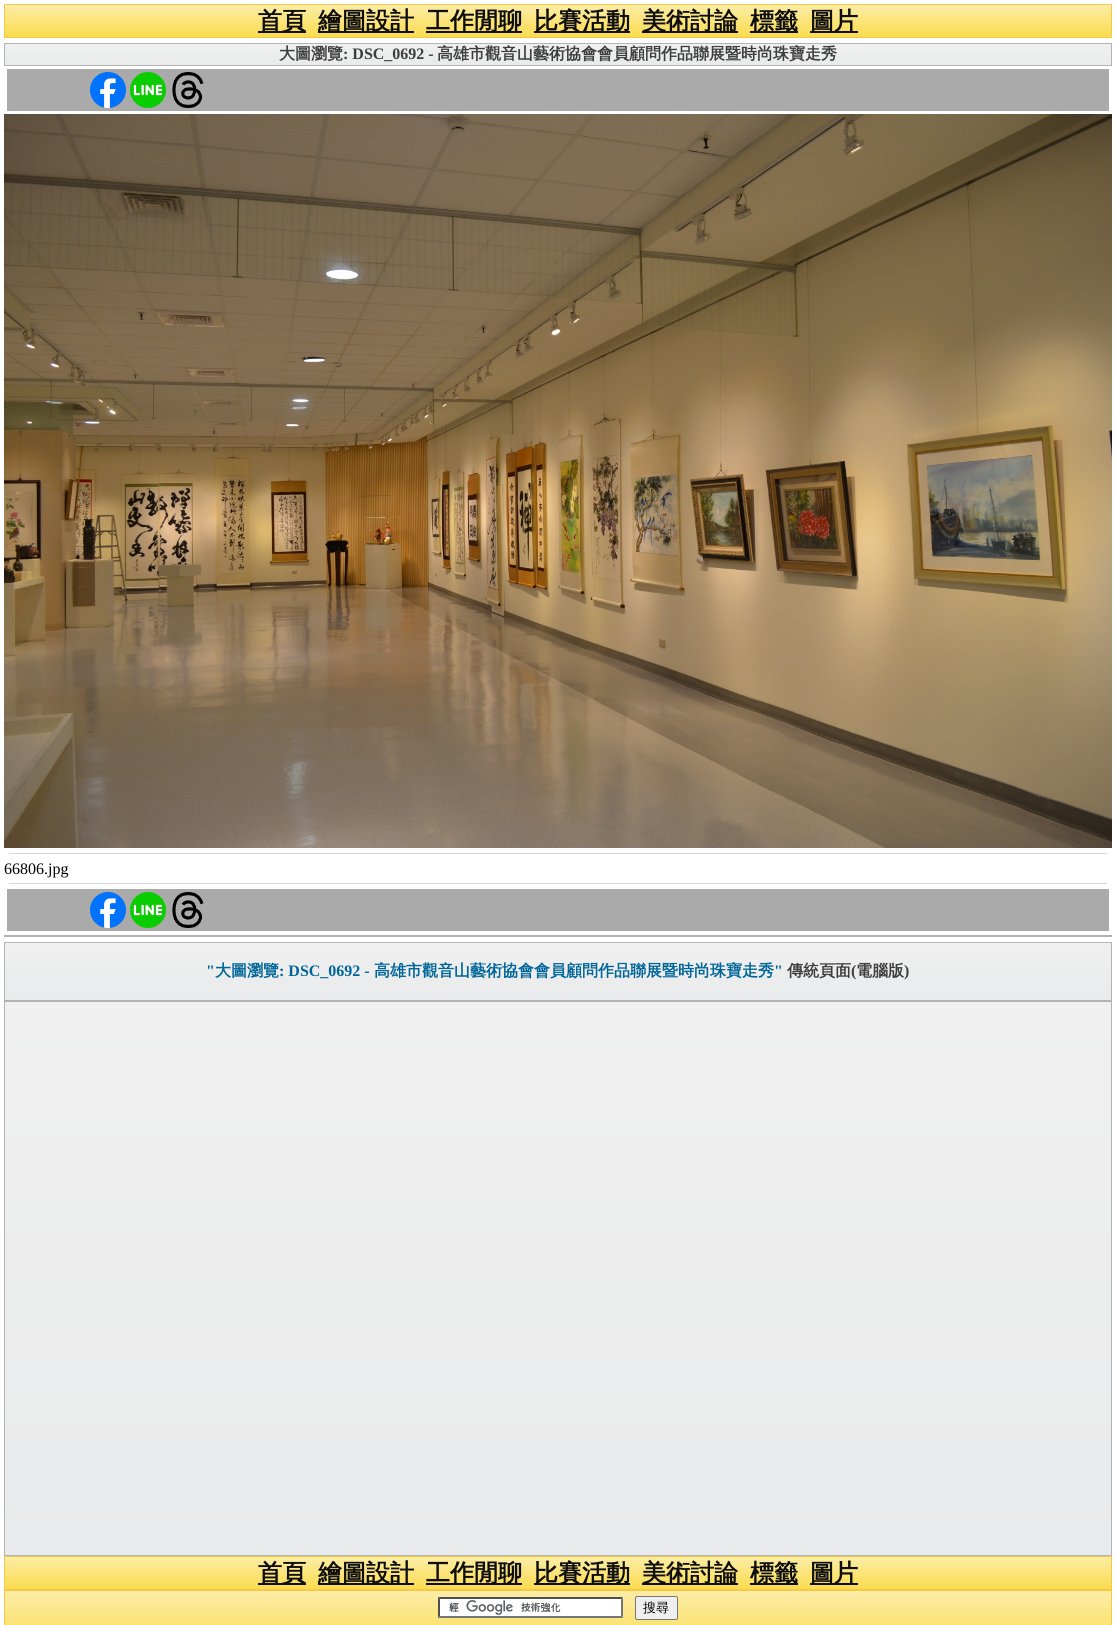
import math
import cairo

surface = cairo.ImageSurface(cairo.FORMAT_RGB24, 1116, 1625)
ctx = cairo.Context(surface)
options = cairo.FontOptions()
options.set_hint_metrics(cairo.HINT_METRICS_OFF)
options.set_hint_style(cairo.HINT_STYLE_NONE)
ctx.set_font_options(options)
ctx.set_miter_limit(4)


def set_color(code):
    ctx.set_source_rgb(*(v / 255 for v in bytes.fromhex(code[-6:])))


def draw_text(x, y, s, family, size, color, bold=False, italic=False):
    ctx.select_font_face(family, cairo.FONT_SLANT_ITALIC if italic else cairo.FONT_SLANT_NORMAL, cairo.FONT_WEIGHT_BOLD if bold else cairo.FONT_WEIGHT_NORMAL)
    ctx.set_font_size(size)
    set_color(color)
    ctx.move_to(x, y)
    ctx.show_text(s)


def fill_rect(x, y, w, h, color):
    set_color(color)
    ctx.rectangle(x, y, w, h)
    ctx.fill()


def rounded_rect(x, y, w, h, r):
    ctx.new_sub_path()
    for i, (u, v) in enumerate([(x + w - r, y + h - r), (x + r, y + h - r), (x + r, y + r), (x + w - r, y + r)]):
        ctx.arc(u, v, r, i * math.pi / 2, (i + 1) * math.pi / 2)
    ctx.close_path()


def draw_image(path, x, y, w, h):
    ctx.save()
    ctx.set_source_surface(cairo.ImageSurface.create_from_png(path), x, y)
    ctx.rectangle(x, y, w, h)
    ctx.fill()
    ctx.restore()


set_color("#ffffff")
ctx.paint()
gradient = cairo.LinearGradient(5, 5, 5, 37)
gradient.add_color_stop_rgba(0, 0.988, 0.929, 0.655, 1)
gradient.add_color_stop_rgba(1, 0.98, 0.859, 0.306, 1)
ctx.set_source(gradient)
ctx.rectangle(5, 5, 1106, 32)
ctx.fill()
ctx.rectangle(4.5, 4.5, 1107, 33)
set_color("#f7c942")
ctx.set_line_width(1)
ctx.stroke()
fill_rect(258, 31, 48, 2, "#0e0e0e")
draw_text(258, 29, "首頁", "WenQuanYi Zen Hei", 24, "#0e0e0e", bold=True)
fill_rect(318, 31, 96, 2, "#0e0e0e")
draw_text(318, 29, "繪圖設計", "WenQuanYi Zen Hei", 24, "#0e0e0e", bold=True)
fill_rect(426, 31, 96, 2, "#0e0e0e")
draw_text(426, 29, "工作閒聊", "WenQuanYi Zen Hei", 24, "#0e0e0e", bold=True)
fill_rect(534, 31, 96, 2, "#0e0e0e")
draw_text(534, 29, "比賽活動", "WenQuanYi Zen Hei", 24, "#0e0e0e", bold=True)
fill_rect(642, 31, 96, 2, "#0e0e0e")
draw_text(642, 29, "美術討論", "WenQuanYi Zen Hei", 24, "#0e0e0e", bold=True)
fill_rect(750, 31, 48, 2, "#0e0e0e")
draw_text(750, 29, "標籤", "WenQuanYi Zen Hei", 24, "#0e0e0e", bold=True)
fill_rect(810, 31, 48, 2, "#0e0e0e")
draw_text(810, 29, "圖片", "WenQuanYi Zen Hei", 24, "#0e0e0e", bold=True)
gradient = cairo.LinearGradient(5, 44, 5, 65)
gradient.add_color_stop_rgba(0, 0.941, 0.941, 0.941, 1)
gradient.add_color_stop_rgba(1, 0.914, 0.918, 0.922, 1)
ctx.set_source(gradient)
ctx.rectangle(5, 44, 1106, 21)
ctx.fill()
ctx.rectangle(4.5, 43.5, 1107, 22)
set_color("#b3b3b3")
ctx.stroke()
draw_text(279, 59, "大圖瀏覽", "WenQuanYi Zen Hei", 16, "#3e3e3e", bold=True)
draw_text(343, 59, ": DSC_0692 -", "Liberation Serif", 16, "#3e3e3e", bold=True)
draw_text(437, 59, "高雄市觀音山藝術協會會員顧問作品聯展暨時尚珠寶走秀", "WenQuanYi Zen Hei", 16, "#3e3e3e", bold=True)
fill_rect(7, 69, 1102, 42, "#aaaaaa")
draw_image("assets/img1.png", 90, 72, 36, 36)
draw_image("assets/img2.png", 130, 72, 36, 36)
draw_image("assets/img3.png", 172, 72, 32, 36)
draw_image("assets/img4.png", 4, 114, 1108, 734)
fill_rect(9, 853, 1098, 1, "#d1d7dc")
draw_text(4, 874, "66806.jpg", "Liberation Serif", 16, "#000000")
fill_rect(9, 883, 1098, 1, "#d1d7dc")
fill_rect(7, 889, 1102, 42, "#aaaaaa")
draw_image("assets/img1.png", 90, 892, 36, 36)
draw_image("assets/img2.png", 130, 892, 36, 36)
draw_image("assets/img3.png", 172, 892, 32, 36)
fill_rect(4, 935, 1108, 2, "#b3b3b3")
gradient = cairo.LinearGradient(5, 943, 5, 1000)
gradient.add_color_stop_rgba(0, 0.941, 0.941, 0.941, 1)
gradient.add_color_stop_rgba(1, 0.914, 0.918, 0.922, 1)
ctx.set_source(gradient)
ctx.rectangle(5, 943, 1106, 57)
ctx.fill()
ctx.rectangle(4.5, 942.5, 1107, 58)
set_color("#b3b3b3")
ctx.stroke()
draw_text(206, 976, "\"", "Liberation Serif", 16, "#006699", bold=True)
draw_text(215, 976, "大圖瀏覽", "WenQuanYi Zen Hei", 16, "#006699", bold=True)
draw_text(279, 976, ": DSC_0692 -", "Liberation Serif", 16, "#006699", bold=True)
draw_text(374, 976, "高雄市觀音山藝術協會會員顧問作品聯展暨時尚珠寶走秀", "WenQuanYi Zen Hei", 16, "#006699", bold=True)
draw_text(774, 976, "\"", "Liberation Serif", 16, "#006699", bold=True)
draw_text(787, 976, "傳統頁面", "WenQuanYi Zen Hei", 16, "#3e3e3e", bold=True)
draw_text(851, 976, "(", "Liberation Serif", 16, "#3e3e3e", bold=True)
draw_text(856, 976, "電腦版", "WenQuanYi Zen Hei", 16, "#3e3e3e", bold=True)
draw_text(904, 976, ")", "Liberation Serif", 16, "#3e3e3e", bold=True)
gradient = cairo.LinearGradient(5, 1002, 5, 1555)
gradient.add_color_stop_rgba(0, 0.941, 0.941, 0.941, 1)
gradient.add_color_stop_rgba(1, 0.914, 0.918, 0.922, 1)
ctx.set_source(gradient)
ctx.rectangle(5, 1002, 1106, 553)
ctx.fill()
ctx.rectangle(4.5, 1001.5, 1107, 554)
set_color("#b3b3b3")
ctx.stroke()
gradient = cairo.LinearGradient(5, 1557, 5, 1589)
gradient.add_color_stop_rgba(0, 0.988, 0.929, 0.655, 1)
gradient.add_color_stop_rgba(1, 0.98, 0.859, 0.306, 1)
ctx.set_source(gradient)
ctx.rectangle(5, 1557, 1106, 32)
ctx.fill()
ctx.rectangle(4.5, 1556.5, 1107, 33)
set_color("#f7c942")
ctx.stroke()
fill_rect(258, 1583, 48, 2, "#0e0e0e")
draw_text(258, 1581, "首頁", "WenQuanYi Zen Hei", 24, "#0e0e0e", bold=True)
fill_rect(318, 1583, 96, 2, "#0e0e0e")
draw_text(318, 1581, "繪圖設計", "WenQuanYi Zen Hei", 24, "#0e0e0e", bold=True)
fill_rect(426, 1583, 96, 2, "#0e0e0e")
draw_text(426, 1581, "工作閒聊", "WenQuanYi Zen Hei", 24, "#0e0e0e", bold=True)
fill_rect(534, 1583, 96, 2, "#0e0e0e")
draw_text(534, 1581, "比賽活動", "WenQuanYi Zen Hei", 24, "#0e0e0e", bold=True)
fill_rect(642, 1583, 96, 2, "#0e0e0e")
draw_text(642, 1581, "美術討論", "WenQuanYi Zen Hei", 24, "#0e0e0e", bold=True)
fill_rect(750, 1583, 48, 2, "#0e0e0e")
draw_text(750, 1581, "標籤", "WenQuanYi Zen Hei", 24, "#0e0e0e", bold=True)
fill_rect(810, 1583, 48, 2, "#0e0e0e")
draw_text(810, 1581, "圖片", "WenQuanYi Zen Hei", 24, "#0e0e0e", bold=True)
gradient = cairo.LinearGradient(5, 1591, 5, 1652)
gradient.add_color_stop_rgba(0, 0.988, 0.929, 0.655, 1)
gradient.add_color_stop_rgba(1, 0.98, 0.859, 0.306, 1)
ctx.set_source(gradient)
ctx.rectangle(5, 1591, 1106, 34)
ctx.fill()
ctx.rectangle(4.5, 1590.5, 1107, 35)
set_color("#f7c942")
ctx.stroke()
fill_rect(438, 1597, 185, 21, "#ffffff")
draw_image("assets/img5.png", 449, 1600, 112, 15)
set_color("#4f4f4f")
ctx.new_path()
ctx.move_to(438, 1597)
ctx.line_to(623, 1597)
ctx.line_to(621, 1599)
ctx.line_to(440, 1599)
ctx.close_path()
ctx.fill()
set_color("#767676")
ctx.new_path()
ctx.move_to(623, 1597)
ctx.line_to(623, 1618)
ctx.line_to(621, 1616)
ctx.line_to(621, 1599)
ctx.close_path()
ctx.fill()
ctx.new_path()
ctx.move_to(623, 1618)
ctx.line_to(438, 1618)
ctx.line_to(440, 1616)
ctx.line_to(621, 1616)
ctx.close_path()
ctx.fill()
set_color("#4f4f4f")
ctx.new_path()
ctx.move_to(438, 1618)
ctx.line_to(438, 1597)
ctx.line_to(440, 1599)
ctx.line_to(440, 1616)
ctx.close_path()
ctx.fill()
set_color("#efefef")
rounded_rect(635.5, 1596.5, 42, 23, 1.5)
ctx.fill_preserve()
set_color("#767676")
ctx.stroke()
draw_text(643, 1612, "搜尋", "WenQuanYi Zen Hei Medium", 13, "#000000")
surface.write_to_png("output.png")
